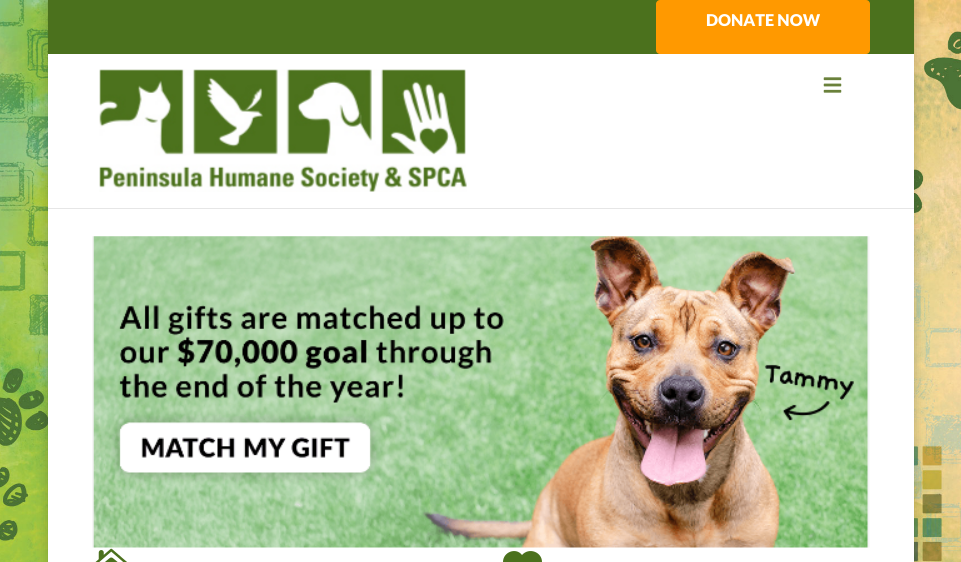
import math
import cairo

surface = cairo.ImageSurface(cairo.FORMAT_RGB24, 961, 562)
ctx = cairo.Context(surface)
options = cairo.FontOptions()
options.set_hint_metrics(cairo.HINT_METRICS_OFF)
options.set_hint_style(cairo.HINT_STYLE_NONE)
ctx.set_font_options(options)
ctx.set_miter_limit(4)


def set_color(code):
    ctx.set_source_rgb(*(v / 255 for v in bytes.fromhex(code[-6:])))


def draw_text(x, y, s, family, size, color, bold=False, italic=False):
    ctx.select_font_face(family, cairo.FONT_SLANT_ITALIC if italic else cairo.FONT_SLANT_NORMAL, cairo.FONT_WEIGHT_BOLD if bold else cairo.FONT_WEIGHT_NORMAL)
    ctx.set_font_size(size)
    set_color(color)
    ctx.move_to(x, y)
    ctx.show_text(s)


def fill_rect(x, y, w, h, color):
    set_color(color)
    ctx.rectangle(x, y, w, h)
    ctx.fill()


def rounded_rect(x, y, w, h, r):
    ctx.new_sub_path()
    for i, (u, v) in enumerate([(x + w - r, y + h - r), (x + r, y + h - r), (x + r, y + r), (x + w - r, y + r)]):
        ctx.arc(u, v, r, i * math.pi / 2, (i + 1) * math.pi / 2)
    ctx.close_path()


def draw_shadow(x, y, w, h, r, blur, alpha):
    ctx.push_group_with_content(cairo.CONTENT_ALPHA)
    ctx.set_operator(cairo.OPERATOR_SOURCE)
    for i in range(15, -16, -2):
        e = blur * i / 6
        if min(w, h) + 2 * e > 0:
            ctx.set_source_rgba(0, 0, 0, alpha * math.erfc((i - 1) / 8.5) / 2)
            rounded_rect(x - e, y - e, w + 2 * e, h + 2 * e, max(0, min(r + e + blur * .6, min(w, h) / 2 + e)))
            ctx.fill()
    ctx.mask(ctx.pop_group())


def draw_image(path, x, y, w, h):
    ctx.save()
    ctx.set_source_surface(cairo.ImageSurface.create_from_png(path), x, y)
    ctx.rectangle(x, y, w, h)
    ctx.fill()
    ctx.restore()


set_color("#ffffff")
ctx.paint()
draw_image("assets/img1.png", 0, 0, 961, 562)
set_color("#000000")
draw_shadow(48, 0, 866, 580, 0, 6, 0.2)
fill_rect(48, 0, 866, 54, "#4b711d")
set_color("#ff9900")
rounded_rect(656, 0, 214, 54, 4)
ctx.fill()
draw_text(706, 26, "DONATE NOW", "Lato Black", 16.25, "#ffffff")
set_color("#e6e6e6")
ctx.new_path()
ctx.move_to(48, 208)
ctx.line_to(48, 209)
ctx.line_to(914, 209)
ctx.line_to(914, 55)
ctx.line_to(914, 208)
ctx.close_path()
ctx.fill()
fill_rect(48, 54, 866, 154, "#ffffff")
draw_image("assets/img2.png", 99, 69, 368, 123)
draw_image("assets/img3.png", 823, 77, 19, 16)
fill_rect(48, 209, 866, 353, "#ffffff")
draw_image("assets/img4.png", 92, 236, 778, 312)
draw_image("assets/img5.png", 95, 548, 32, 14)
set_color("#4b711d")
ctx.new_path()
ctx.move_to(542, 562)
ctx.curve_to(542, 552, 529, 547, 522, 555)
ctx.curve_to(516, 547, 503, 552, 503, 562)
ctx.line_to(502, 562)
ctx.curve_to(502, 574, 513, 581, 522, 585)
ctx.curve_to(532, 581, 542, 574, 542, 562)
ctx.close_path()
ctx.fill()
surface.write_to_png("output.png")
